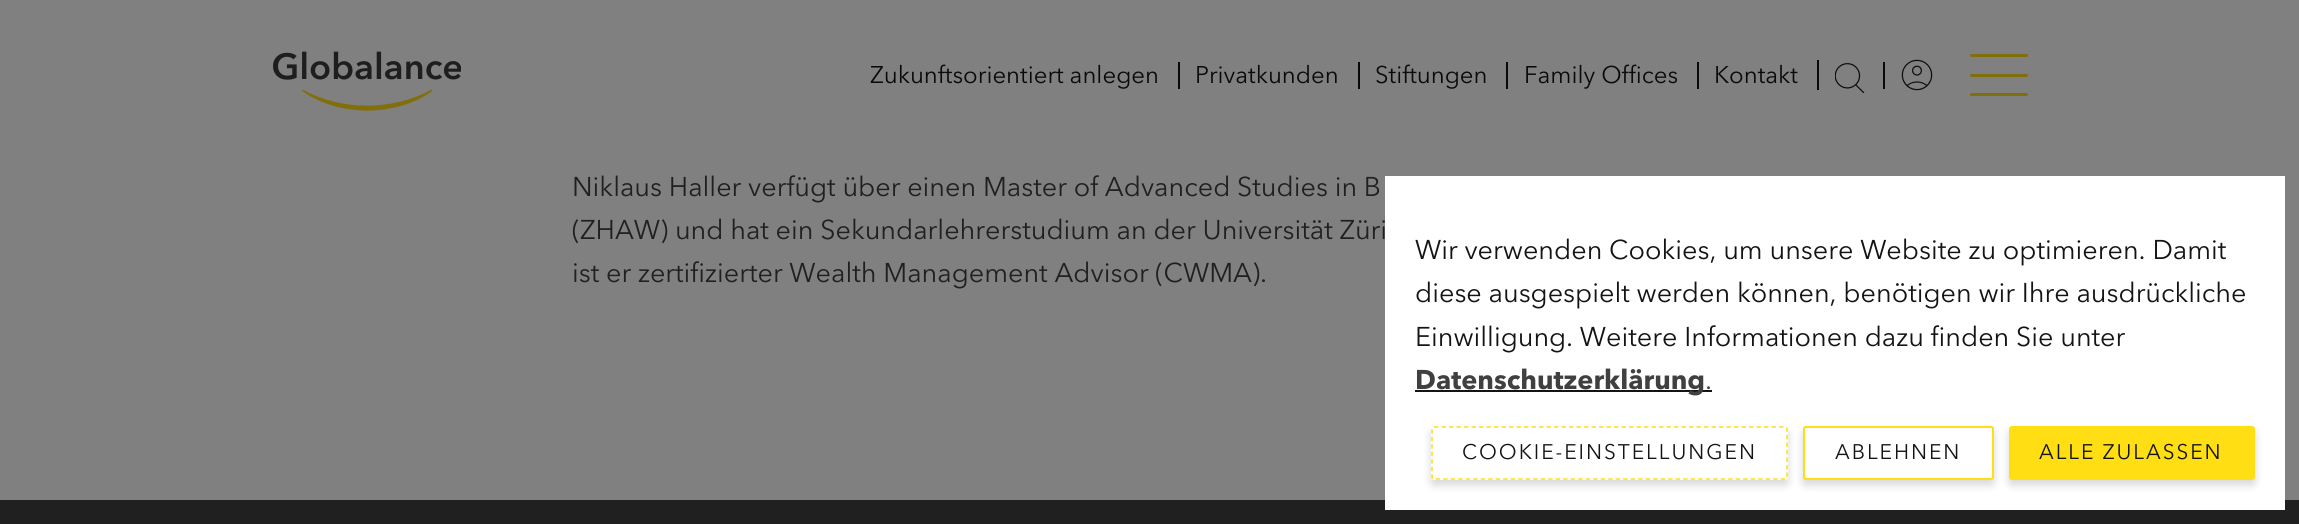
import math
import cairo

surface = cairo.ImageSurface(cairo.FORMAT_RGB24, 2299, 524)
ctx = cairo.Context(surface)
options = cairo.FontOptions()
options.set_hint_metrics(cairo.HINT_METRICS_OFF)
options.set_hint_style(cairo.HINT_STYLE_NONE)
ctx.set_font_options(options)
ctx.set_miter_limit(4)


def set_color(code):
    ctx.set_source_rgb(*(v / 255 for v in bytes.fromhex(code[-6:])))


def draw_text(x, y, s, family, size, color, bold=False, italic=False):
    ctx.select_font_face(family, cairo.FONT_SLANT_ITALIC if italic else cairo.FONT_SLANT_NORMAL, cairo.FONT_WEIGHT_BOLD if bold else cairo.FONT_WEIGHT_NORMAL)
    ctx.set_font_size(size)
    set_color(color)
    ctx.move_to(x, y)
    ctx.show_text(s)


def draw_spaced(x, y, s, letter, word):
    ctx.move_to(x, y)
    for ch in s:
        ctx.show_text(ch)
        ctx.rel_move_to(letter + word * (ch == ' '), 0)


def fill_rect(x, y, w, h, color):
    set_color(color)
    ctx.rectangle(x, y, w, h)
    ctx.fill()


def rounded_rect(x, y, w, h, r):
    ctx.new_sub_path()
    for i, (u, v) in enumerate([(x + w - r, y + h - r), (x + r, y + h - r), (x + r, y + r), (x + w - r, y + r)]):
        ctx.arc(u, v, r, i * math.pi / 2, (i + 1) * math.pi / 2)
    ctx.close_path()


def draw_shadow(x, y, w, h, r, blur, alpha):
    ctx.push_group_with_content(cairo.CONTENT_ALPHA)
    ctx.set_operator(cairo.OPERATOR_SOURCE)
    for i in range(15, -16, -2):
        e = blur * i / 6
        if min(w, h) + 2 * e > 0:
            ctx.set_source_rgba(0, 0, 0, alpha * math.erfc((i - 1) / 8.5) / 2)
            rounded_rect(x - e, y - e, w + 2 * e, h + 2 * e, max(0, min(r + e + blur * .6, min(w, h) / 2 + e)))
            ctx.fill()
    ctx.mask(ctx.pop_group())


def draw_image(path, x, y, w, h):
    ctx.save()
    ctx.set_source_surface(cairo.ImageSurface.create_from_png(path), x, y)
    ctx.rectangle(x, y, w, h)
    ctx.fill()
    ctx.restore()


set_color("#808080")
ctx.paint()
draw_image("assets/img1.png", 273, 51, 188, 60)
draw_text(870, 83, "Zukunftsorientiert anlegen", "Avenir Next", 24, "#0a0a0a")
fill_rect(1178, 62, 2, 27, "#0a0a0a")
draw_text(1195, 83, "Privatkunden", "Avenir Next", 24, "#0a0a0a")
fill_rect(1358, 62, 2, 27, "#0a0a0a")
draw_text(1375, 83, "Stiftungen", "Avenir Next", 24, "#0a0a0a")
fill_rect(1506, 62, 2, 27, "#0a0a0a")
draw_text(1524, 83, "Family Offices", "Avenir Next", 24, "#0a0a0a")
fill_rect(1697, 62, 2, 27, "#0a0a0a")
draw_text(1714, 83, "Kontakt", "Avenir Next", 24, "#0a0a0a")
fill_rect(1817, 60, 2, 30, "#0a0a0a")
draw_image("assets/img2.png", 1835, 63, 30, 30)
fill_rect(1883, 62, 2, 27, "#0a0a0a")
draw_image("assets/img3.png", 1901, 59, 32, 32)
set_color("#806f0a")
rounded_rect(1970, 74, 58, 3, 1.5)
ctx.fill()
rounded_rect(1970, 54, 58, 3, 1.5)
ctx.fill()
rounded_rect(1970, 93, 58, 3, 1.5)
ctx.fill()
draw_text(572, 196, "Niklaus Haller verfügt über einen Master of Advanced Studies in B", "Avenir Next", 27, "#202020")
draw_text(572, 239, "(ZHAW) und hat ein Sekundarlehrerstudium an der Universität Züri", "Avenir Next", 27, "#202020")
draw_text(572, 282, "ist er zertifizierter Wealth Management Advisor (CWMA).", "Avenir Next", 27, "#202020")
fill_rect(0, 500, 2299, 24, "#202020")
fill_rect(1385, 176, 900, 334, "#ffffff")
draw_text(1415, 259, "Wir verwenden Cookies, um unsere Website zu optimieren. Damit", "Avenir Next", 27, "#141414")
draw_text(1415, 302, "diese ausgespielt werden können, benötigen wir Ihre ausdrückliche", "Avenir Next", 27, "#141414")
draw_text(1415, 346, "Einwilligung. Weitere Informationen dazu finden Sie unter", "Avenir Next", 27, "#141414")
fill_rect(1415, 390, 297, 2, "#141414")
draw_text(1415, 389, "Datenschutzerklärung", "Avenir Next", 27, "#404040", bold=True)
draw_text(1705, 389, ".", "Avenir Next", 27, "#404040")
set_color("#000000")
draw_shadow(1431, 431, 357, 54, 3, 4.5, 0.16)
set_color("#ffffff")
rounded_rect(1431, 426, 357, 54, 3)
ctx.fill()
ctx.new_path()
ctx.move_to(1434, 427)
ctx.line_to(1785, 427)
ctx.curve_to(1786, 427, 1787, 428, 1787, 429)
ctx.line_to(1787, 477)
ctx.curve_to(1787, 478, 1786, 479, 1785, 479)
ctx.line_to(1434, 479)
ctx.curve_to(1433, 479, 1432, 478, 1432, 477)
ctx.line_to(1432, 429)
ctx.curve_to(1432, 428, 1433, 427, 1434, 427)
ctx.close_path()
set_color("#ffde14")
ctx.set_line_width(1.5)
ctx.set_dash([4.5, 3])
ctx.stroke()
ctx.set_font_size(21)
set_color("#141414")
draw_spaced(1462, 459, "COOKIE-EINSTELLUNGEN", 1.95, 0)
set_color("#000000")
draw_shadow(1803, 431, 191, 54, 3, 4.5, 0.16)
set_color("#ffffff")
rounded_rect(1804, 427, 189, 52, 2)
ctx.fill_preserve()
set_color("#ffde14")
ctx.set_line_width(2)
ctx.set_dash([])
ctx.stroke()
set_color("#141414")
draw_spaced(1835, 459, "ABLEHNEN", 1.95, 0)
set_color("#000000")
draw_shadow(2009, 431, 246, 54, 3, 4.5, 0.16)
set_color("#ffde14")
rounded_rect(2010, 427, 244, 52, 2)
ctx.fill_preserve()
ctx.stroke()
set_color("#141414")
draw_spaced(2039, 459, "ALLE ZULASSEN", 1.95, 0)
surface.write_to_png("output.png")
